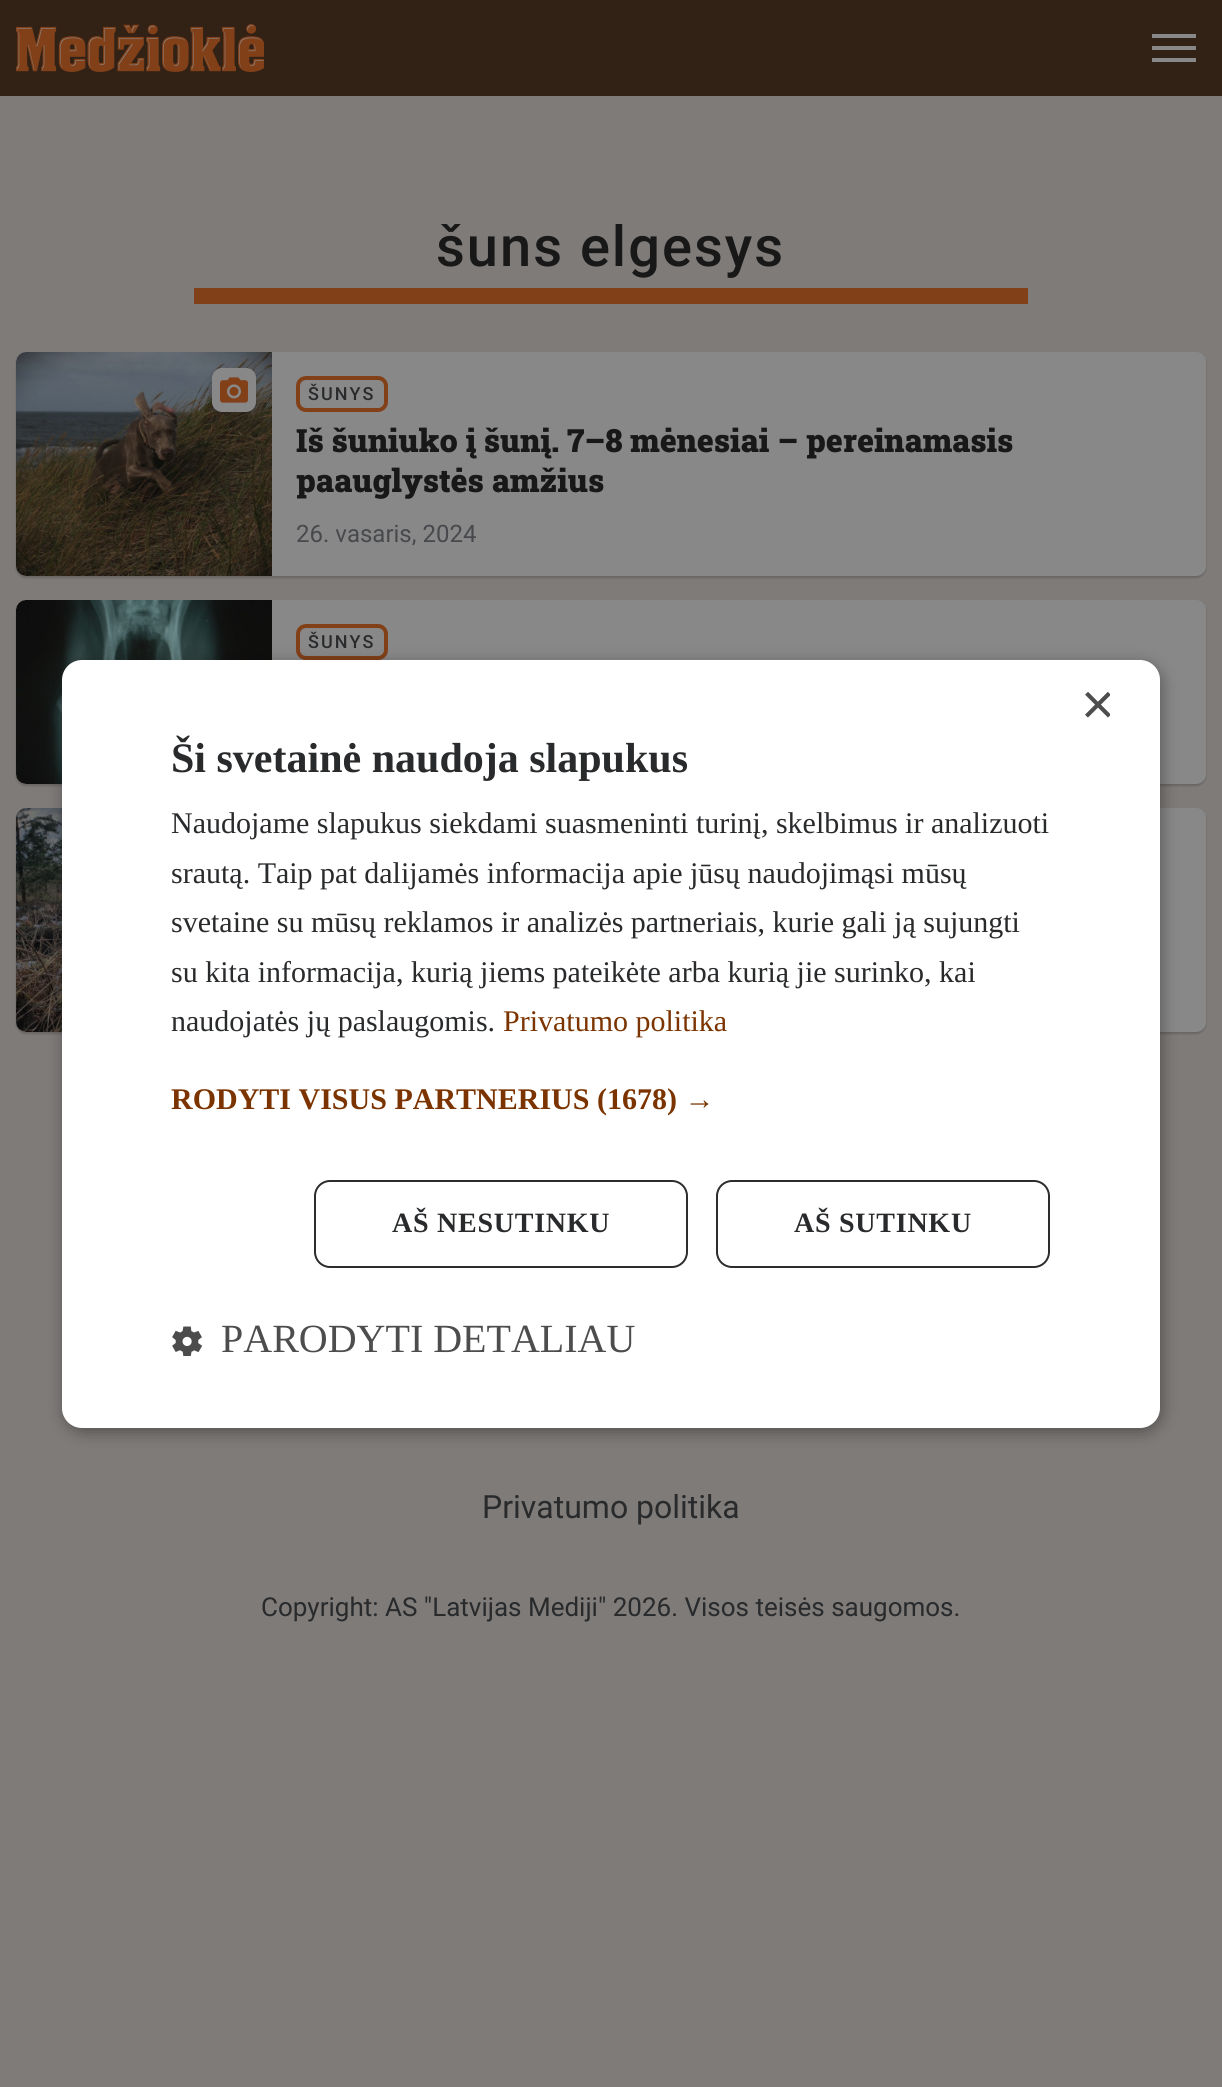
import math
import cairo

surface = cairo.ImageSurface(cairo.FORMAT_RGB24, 1222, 2087)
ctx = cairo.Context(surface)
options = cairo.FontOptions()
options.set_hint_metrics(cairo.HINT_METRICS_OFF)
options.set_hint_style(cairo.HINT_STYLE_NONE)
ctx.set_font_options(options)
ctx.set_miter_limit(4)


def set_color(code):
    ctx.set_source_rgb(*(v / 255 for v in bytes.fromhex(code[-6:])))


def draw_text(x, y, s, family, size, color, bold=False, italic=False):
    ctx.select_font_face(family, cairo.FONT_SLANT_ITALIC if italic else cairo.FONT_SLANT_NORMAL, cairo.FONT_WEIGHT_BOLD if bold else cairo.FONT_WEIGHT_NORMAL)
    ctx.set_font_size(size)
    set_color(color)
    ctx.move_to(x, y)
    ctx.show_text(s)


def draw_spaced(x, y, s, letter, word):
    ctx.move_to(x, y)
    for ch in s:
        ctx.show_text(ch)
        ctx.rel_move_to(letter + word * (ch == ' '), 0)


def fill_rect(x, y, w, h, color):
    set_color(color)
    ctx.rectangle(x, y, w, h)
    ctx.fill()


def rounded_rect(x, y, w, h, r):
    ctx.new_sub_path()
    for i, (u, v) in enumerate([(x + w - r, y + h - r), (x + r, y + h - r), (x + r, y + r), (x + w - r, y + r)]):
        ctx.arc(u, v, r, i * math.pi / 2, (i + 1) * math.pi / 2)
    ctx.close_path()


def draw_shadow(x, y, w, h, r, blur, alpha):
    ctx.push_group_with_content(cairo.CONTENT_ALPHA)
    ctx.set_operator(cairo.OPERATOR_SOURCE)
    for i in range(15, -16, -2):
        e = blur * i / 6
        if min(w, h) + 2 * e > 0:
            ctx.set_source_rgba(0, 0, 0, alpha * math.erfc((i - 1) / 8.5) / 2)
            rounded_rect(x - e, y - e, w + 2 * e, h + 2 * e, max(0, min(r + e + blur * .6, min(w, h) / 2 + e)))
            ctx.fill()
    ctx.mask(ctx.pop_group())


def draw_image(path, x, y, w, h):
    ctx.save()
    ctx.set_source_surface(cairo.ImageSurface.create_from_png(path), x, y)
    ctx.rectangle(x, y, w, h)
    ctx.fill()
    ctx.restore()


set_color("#7e7b79")
ctx.paint()
fill_rect(0, 0, 1222, 96, "#322115")
draw_image("assets/img1.png", 16, 24, 248, 48)
set_color("#888888")
ctx.new_path()
ctx.move_to(1152, 62)
ctx.line_to(1196, 62)
ctx.line_to(1196, 58)
ctx.line_to(1152, 58)
ctx.close_path()
ctx.move_to(1152, 50)
ctx.line_to(1196, 50)
ctx.line_to(1196, 46)
ctx.line_to(1152, 46)
ctx.close_path()
ctx.move_to(1152, 34)
ctx.line_to(1152, 38)
ctx.line_to(1196, 38)
ctx.line_to(1196, 34)
ctx.close_path()
ctx.fill()
fill_rect(194, 288, 834, 16, "#824019")
ctx.select_font_face("Roboto Medium")
ctx.set_font_size(56)
set_color("#181819")
draw_spaced(436, 266, "šuns elgesys", 2, 0)
set_color("#2d2421")
draw_shadow(16, 354, 1190, 224, 10, 1, 0.25)
set_color("#888888")
rounded_rect(16, 352, 1190, 224, 10)
ctx.fill()
draw_image("assets/img2.png", 16, 352, 256, 224)
set_color("#090909")
draw_shadow(212, 372, 44, 44, 10, 4, 0.2)
set_color("#888888")
rounded_rect(212, 368, 44, 44, 10)
ctx.fill()
draw_image("assets/img3.png", 220, 377, 28, 26)
rounded_rect(298, 378, 88, 32, 8)
set_color("#824019")
ctx.set_line_width(4)
ctx.stroke()
ctx.set_font_size(18)
set_color("#282a2c")
draw_spaced(308, 400, "ŠUNYS", 2, 0)
draw_text(296, 452, "Iš šuniuko į šunį. 7–8 mėnesiai – pereinamasis", "Roboto Slab Black", 32, "#181819")
draw_text(296, 492, "paauglystės amžius", "Roboto Slab Black", 32, "#181819")
draw_text(296, 542, "26. vasaris, 2024", "Roboto", 24, "#47494c")
set_color("#2d2421")
draw_shadow(16, 602, 1190, 184, 10, 1, 0.25)
set_color("#888888")
rounded_rect(16, 600, 1190, 184, 10)
ctx.fill()
draw_image("assets/img4.png", 16, 600, 256, 184)
rounded_rect(298, 626, 88, 32, 8)
set_color("#824019")
ctx.stroke()
ctx.select_font_face("Roboto Medium")
ctx.set_font_size(18)
set_color("#282a2c")
draw_spaced(308, 648, "ŠUNYS", 2, 0)
set_color("#2d2421")
draw_shadow(16, 810, 1190, 224, 10, 1, 0.25)
set_color("#888888")
rounded_rect(16, 808, 1190, 224, 10)
ctx.fill()
draw_image("assets/img5.png", 16, 808, 46, 224)
draw_text(482, 1518, "Privatumo politika", "Roboto", 32, "#282a2c")
draw_text(261, 1616, "Copyright: AS \"Latvijas Mediji\" 2026. Visos teisės saugomos.", "Roboto", 26, "#282a2c")
set_color("#000000")
draw_shadow(64, 664, 1098, 768, 20, 8, 0.35)
set_color("#ffffff")
rounded_rect(62, 660, 1098, 768, 20)
ctx.fill()
ctx.save()
ctx.rectangle(1080, 692, 30, 30)
ctx.clip()
draw_text(1081, 724, "×", "Liberation Sans", 58, "#4d4d4d")
ctx.restore()
draw_text(171, 772, "Ši svetainė naudoja slapukus", "Liberation Serif", 42, "#282a2c", bold=True)
draw_text(171, 833, "Naudojame slapukus siekdami suasmeninti turinį, skelbimus ir analizuoti", "Liberation Serif", 30, "#282a2c")
draw_text(171, 883, "srautą. Taip pat dalijamės informacija apie jūsų naudojimąsi mūsų", "Liberation Serif", 30, "#282a2c")
draw_text(171, 932, "svetaine su mūsų reklamos ir analizės partneriais, kurie gali ją sujungti", "Liberation Serif", 30, "#282a2c")
draw_text(171, 982, "su kita informacija, kurią jiems pateikėte arba kurią jie surinko, kai", "Liberation Serif", 30, "#282a2c")
draw_text(171, 1031, "naudojatės jų paslaugomis.", "Liberation Serif", 30, "#282a2c")
draw_text(503, 1031, "Privatumo politika", "Liberation Serif", 30, "#7b3400")
draw_text(171, 1109, "RODYTI VISUS PARTNERIUS (1678) →", "Liberation Serif", 30, "#7b3400", bold=True)
rounded_rect(315, 1181, 372, 86, 15)
set_color("#2d2d2d")
ctx.set_line_width(2)
ctx.stroke()
ctx.set_font_size(28)
set_color("#282a2c")
draw_spaced(392, 1232, "AŠ NESUTINKU", 0.75, 0)
rounded_rect(717, 1181, 332, 86, 15)
set_color("#2d2d2d")
ctx.stroke()
set_color("#282a2c")
draw_spaced(794, 1232, "AŠ SUTINKU", 0.75, 0)
draw_image("assets/img6.png", 172, 1326, 30, 30)
draw_text(221, 1352, "PARODYTI DETALIAU", "Liberation Serif", 40, "#4d4d4d")
surface.write_to_png("output.png")
